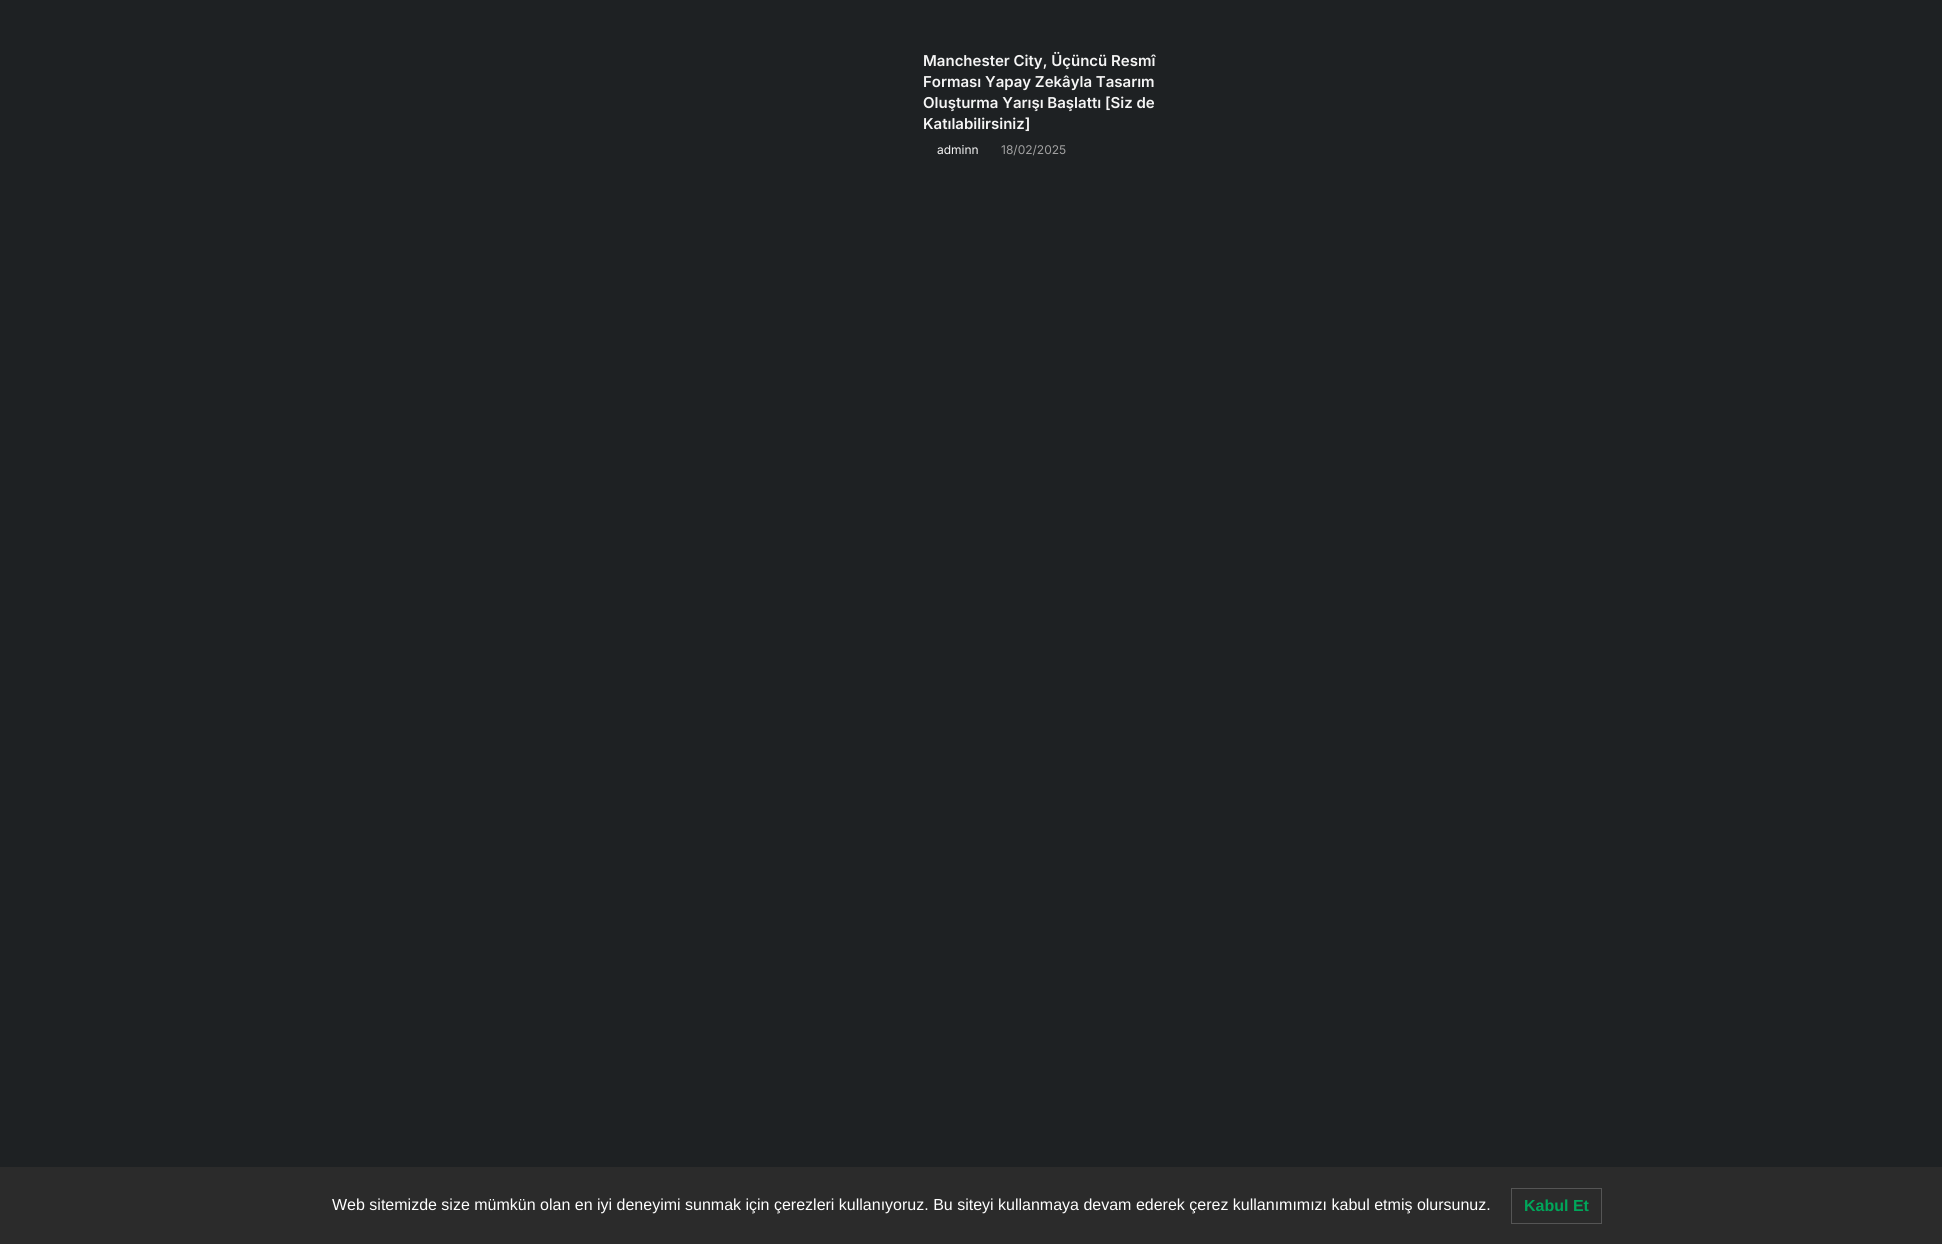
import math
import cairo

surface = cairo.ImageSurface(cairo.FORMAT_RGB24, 1942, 1244)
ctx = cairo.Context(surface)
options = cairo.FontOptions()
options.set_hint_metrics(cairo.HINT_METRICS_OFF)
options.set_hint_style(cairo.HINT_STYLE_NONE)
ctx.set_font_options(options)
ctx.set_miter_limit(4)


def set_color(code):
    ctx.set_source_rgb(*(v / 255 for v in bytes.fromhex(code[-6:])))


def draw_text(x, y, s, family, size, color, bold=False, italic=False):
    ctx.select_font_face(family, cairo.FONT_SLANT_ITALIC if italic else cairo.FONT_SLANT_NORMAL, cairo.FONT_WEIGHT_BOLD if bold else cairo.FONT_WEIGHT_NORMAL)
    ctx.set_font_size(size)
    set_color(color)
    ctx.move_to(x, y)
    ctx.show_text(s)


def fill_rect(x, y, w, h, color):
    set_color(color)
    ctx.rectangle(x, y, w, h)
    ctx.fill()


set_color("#1e2123")
ctx.paint()
draw_text(923, 66, "Manchester City, Üçüncü Resmî", "Inter SemiBold", 15, "#f5f5f5")
draw_text(923, 87, "Forması Yapay Zekâyla Tasarım", "Inter SemiBold", 15, "#f5f5f5")
draw_text(923, 108, "Oluşturma Yarışı Başlattı [Siz de", "Inter SemiBold", 15, "#f5f5f5")
draw_text(923, 129, "Katılabilirsiniz]", "Inter SemiBold", 15, "#f5f5f5")
draw_text(937, 154, "adminn", "Inter", 12, "#f5f5f5")
draw_text(1001, 154, "18/02/2025", "Inter", 12, "#a1a1a1")
fill_rect(0, 1167, 1942, 77, "#2b2b2b")
draw_text(332, 1210, "Web sitemizde size mümkün olan en iyi deneyimi sunmak için çerezleri kullanıyoruz. Bu siteyi kullanmaya devam ederek çerez kullanımımızı kabul etmiş olursunuz.", "Liberation Sans", 16, "#ffffff")
ctx.rectangle(1511.5, 1188.5, 90, 35)
set_color("#555555")
ctx.set_line_width(1)
ctx.stroke()
draw_text(1524, 1211, "Kabul Et", "Liberation Sans", 16, "#00a65a", bold=True)
surface.write_to_png("output.png")
